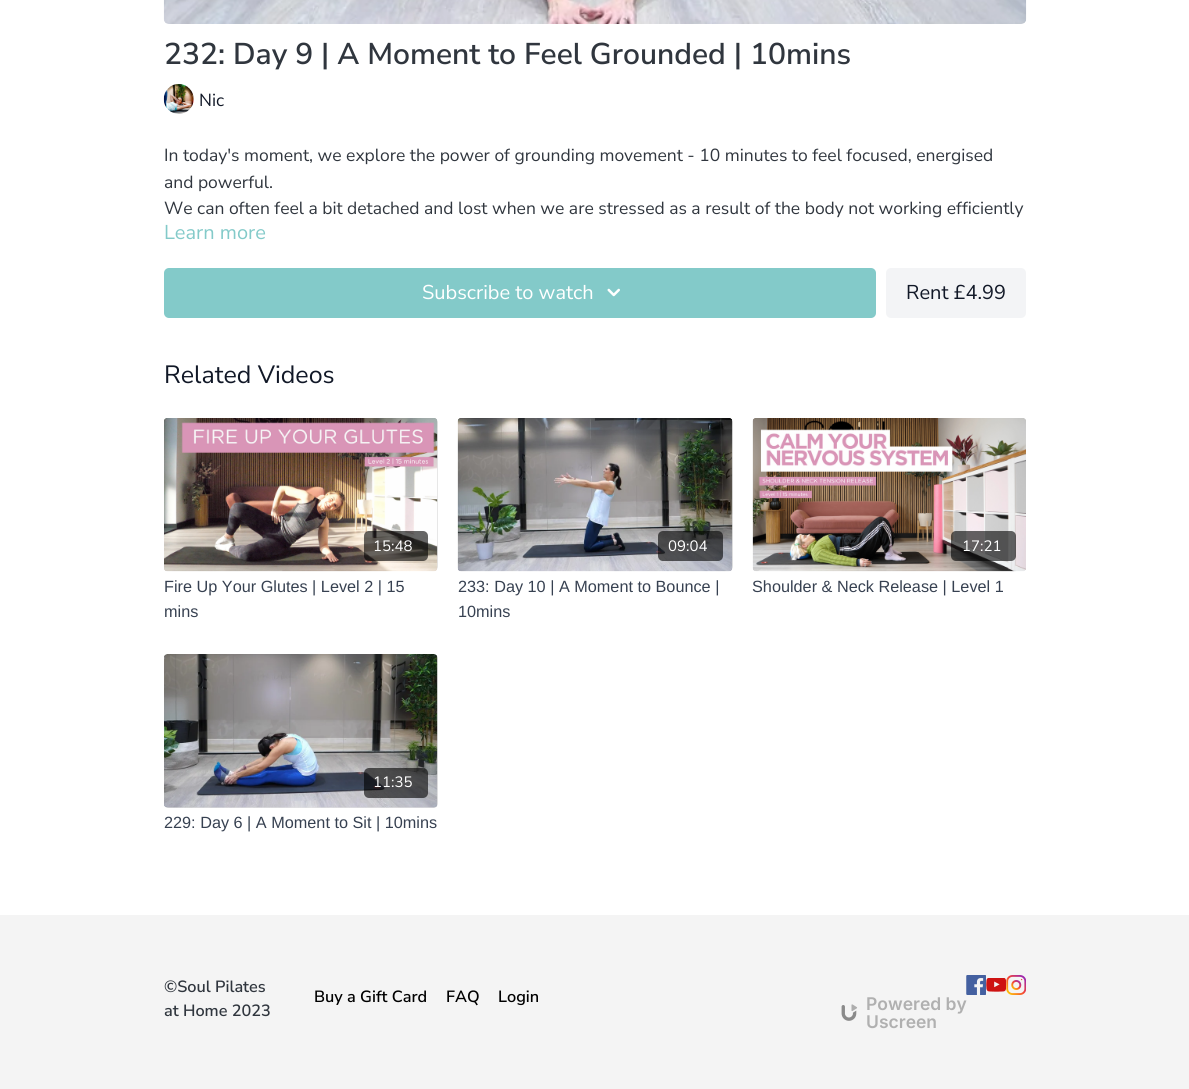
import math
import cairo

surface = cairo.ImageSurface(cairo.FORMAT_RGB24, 1189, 1089)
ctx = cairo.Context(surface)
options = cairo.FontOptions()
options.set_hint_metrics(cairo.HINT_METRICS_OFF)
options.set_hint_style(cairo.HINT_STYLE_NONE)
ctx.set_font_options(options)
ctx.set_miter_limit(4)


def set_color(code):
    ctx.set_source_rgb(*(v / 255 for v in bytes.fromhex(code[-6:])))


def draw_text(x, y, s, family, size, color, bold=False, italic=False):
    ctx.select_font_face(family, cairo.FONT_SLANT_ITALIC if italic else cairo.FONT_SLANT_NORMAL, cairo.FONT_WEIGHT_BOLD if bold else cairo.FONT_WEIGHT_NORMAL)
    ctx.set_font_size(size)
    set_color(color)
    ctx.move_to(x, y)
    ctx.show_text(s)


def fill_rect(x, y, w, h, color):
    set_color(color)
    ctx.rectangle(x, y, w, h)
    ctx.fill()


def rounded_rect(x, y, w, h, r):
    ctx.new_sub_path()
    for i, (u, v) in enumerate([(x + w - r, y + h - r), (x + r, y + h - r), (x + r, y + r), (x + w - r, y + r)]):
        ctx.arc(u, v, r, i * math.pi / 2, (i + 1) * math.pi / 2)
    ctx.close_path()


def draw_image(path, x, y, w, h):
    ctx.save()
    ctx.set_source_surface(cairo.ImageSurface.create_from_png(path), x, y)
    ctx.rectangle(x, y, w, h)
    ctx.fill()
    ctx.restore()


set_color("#ffffff")
ctx.paint()
draw_image("assets/img1.png", 163, 0, 864, 24)
draw_text(164, 64, "232: Day 9 | A Moment to Feel Grounded | 10mins", "Nunito Sans SemiBold", 30, "#30363e")
draw_image("assets/img2.png", 163, 84, 31, 30)
draw_text(199, 106, "Nic", "Nunito Sans", 17.5, "#111827")
draw_text(164, 161, "In today's moment, we explore the power of grounding movement - 10 minutes to feel focused, energised", "Nunito Sans", 17.5, "#30363e")
draw_text(164, 188, "and powerful.", "Nunito Sans", 17.5, "#30363e")
draw_text(164, 214, "We can often feel a bit detached and lost when we are stressed as a result of the body not working efficiently", "Nunito Sans", 17.5, "#30363e")
draw_text(164, 239, "Learn more", "Nunito Sans", 20, "#83cac9")
rounded_rect(164, 268, 712, 50, 5)
ctx.fill()
draw_text(422, 299, "Subscribe to watch", "Nunito Sans", 20, "#ffffff")
draw_image("assets/img3.png", 607, 288, 13, 9)
set_color("#f3f4f6")
rounded_rect(886, 268, 140, 50, 5)
ctx.fill()
draw_text(906, 299, "Rent £4.99", "Nunito Sans", 20, "#111827")
draw_text(164, 383, "Related Videos", "Nunito Sans", 25, "#111827")
gradient = cairo.LinearGradient(164, 494, 438, 494)
gradient.add_color_stop_rgba(0.08, 0.871, 0.871, 0.871, 1)
gradient.add_color_stop_rgba(0.18, 0.878, 0.878, 0.878, 1)
gradient.add_color_stop_rgba(0.33, 0.89, 0.89, 0.89, 1)
ctx.set_source(gradient)
rounded_rect(164, 418, 274, 153, 5)
ctx.fill()
draw_image("assets/img4.png", 164, 418, 274, 154)
ctx.set_source_rgba(0, 0, 0, 0.6)
rounded_rect(364, 531, 64, 30, 5)
ctx.fill()
draw_text(373, 551, "15:48", "Nunito Sans", 15, "#ffffff")
draw_text(164, 592, "Fire Up Your Glutes | Level 2 | 15", "Liberation Sans", 16.25, "#374151")
draw_text(164, 617, "mins", "Liberation Sans", 16.25, "#374151")
gradient = cairo.LinearGradient(458, 494, 733, 494)
gradient.add_color_stop_rgba(0.08, 0.871, 0.871, 0.871, 1)
gradient.add_color_stop_rgba(0.18, 0.878, 0.878, 0.878, 1)
gradient.add_color_stop_rgba(0.33, 0.89, 0.89, 0.89, 1)
ctx.set_source(gradient)
rounded_rect(458, 418, 275, 153, 5)
ctx.fill()
draw_image("assets/img5.png", 457, 418, 276, 154)
ctx.set_source_rgba(0, 0, 0, 0.6)
rounded_rect(658, 531, 65, 30, 5)
ctx.fill()
draw_text(668, 551, "09:04", "Nunito Sans", 15, "#ffffff")
draw_text(458, 592, "233: Day 10 | A Moment to Bounce |", "Liberation Sans", 16.25, "#374151")
draw_text(458, 617, "10mins", "Liberation Sans", 16.25, "#374151")
draw_image("assets/img6.png", 752, 418, 274, 154)
ctx.set_source_rgba(0, 0, 0, 0.6)
rounded_rect(951, 531, 65, 30, 5)
ctx.fill()
draw_text(962, 551, "17:21", "Nunito Sans", 15, "#ffffff")
draw_text(752, 592, "Shoulder & Neck Release | Level 1", "Liberation Sans", 16.25, "#374151")
gradient = cairo.LinearGradient(164, 731, 438, 731)
gradient.add_color_stop_rgba(0.08, 0.871, 0.871, 0.871, 1)
gradient.add_color_stop_rgba(0.18, 0.878, 0.878, 0.878, 1)
gradient.add_color_stop_rgba(0.33, 0.89, 0.89, 0.89, 1)
ctx.set_source(gradient)
rounded_rect(164, 654, 274, 154, 5)
ctx.fill()
draw_image("assets/img7.png", 164, 654, 274, 154)
ctx.set_source_rgba(0, 0, 0, 0.6)
rounded_rect(364, 768, 64, 30, 5)
ctx.fill()
draw_text(373, 787, "11:35", "Nunito Sans", 15, "#ffffff")
draw_text(164, 828, "229: Day 6 | A Moment to Sit | 10mins", "Liberation Sans", 16.25, "#374151")
fill_rect(0, 915, 1189, 174, "#f4f4f4")
draw_text(164, 992, "©Soul Pilates", "Nunito Sans SemiBold", 16.25, "#30363e")
draw_text(164, 1016, "at Home 2023", "Nunito Sans SemiBold", 16.25, "#30363e")
draw_text(314, 1002, "Buy a Gift Card", "Nunito Sans SemiBold", 16.25, "#000000")
draw_text(446, 1002, "FAQ", "Nunito Sans SemiBold", 16.25, "#000000")
draw_text(498, 1002, "Login", "Nunito Sans SemiBold", 16.25, "#000000")
draw_image("assets/img8.png", 966, 975, 20, 20)
draw_image("assets/img9.png", 986, 978, 20, 14)
draw_image("assets/img10.png", 1006, 975, 20, 20)
draw_image("assets/img11.png", 841, 1004, 17, 17)
draw_text(866, 1010, "Powered by", "Inter SemiBold", 17.5, "#b0b0b0")
draw_text(866, 1028, "Uscreen", "Inter SemiBold", 17.5, "#b0b0b0")
surface.write_to_png("output.png")
